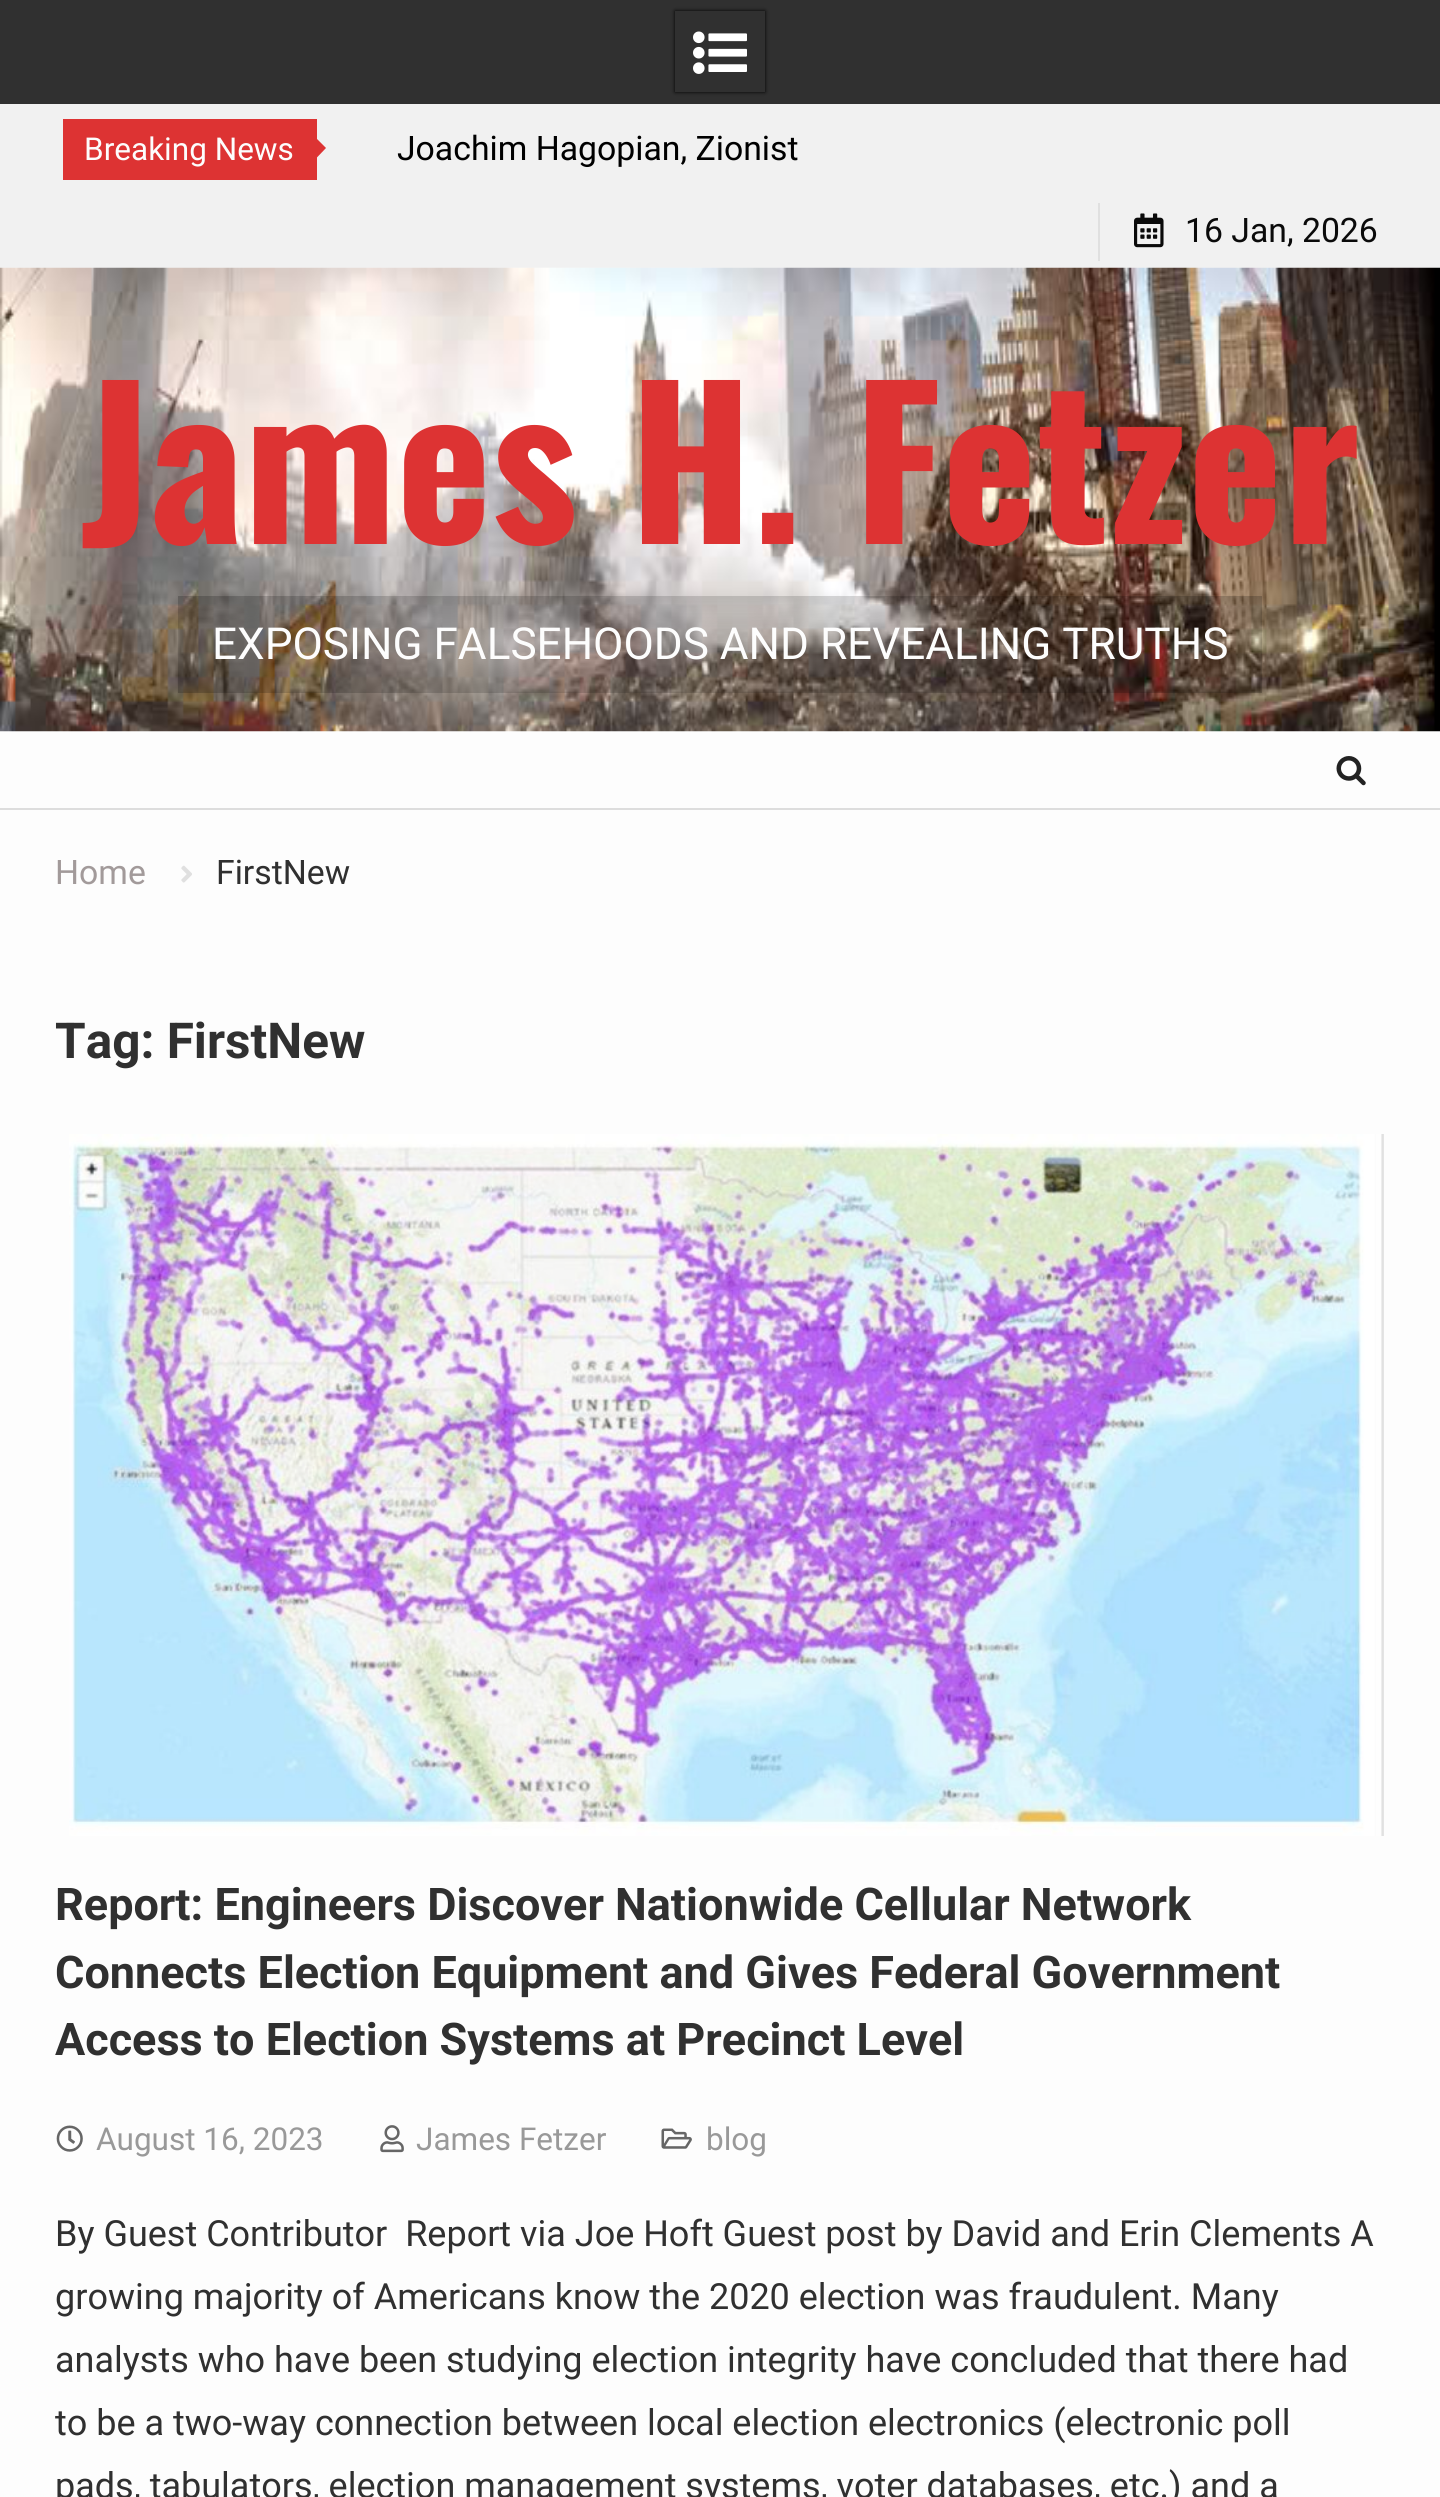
import math
import cairo

surface = cairo.ImageSurface(cairo.FORMAT_RGB24, 1440, 2497)
ctx = cairo.Context(surface)
options = cairo.FontOptions()
options.set_hint_metrics(cairo.HINT_METRICS_OFF)
options.set_hint_style(cairo.HINT_STYLE_NONE)
ctx.set_font_options(options)
ctx.set_miter_limit(4)


def set_color(code):
    ctx.set_source_rgb(*(v / 255 for v in bytes.fromhex(code[-6:])))


def draw_text(x, y, s, family, size, color, bold=False, italic=False):
    ctx.select_font_face(family, cairo.FONT_SLANT_ITALIC if italic else cairo.FONT_SLANT_NORMAL, cairo.FONT_WEIGHT_BOLD if bold else cairo.FONT_WEIGHT_NORMAL)
    ctx.set_font_size(size)
    set_color(color)
    ctx.move_to(x, y)
    ctx.show_text(s)


def fill_rect(x, y, w, h, color):
    set_color(color)
    ctx.rectangle(x, y, w, h)
    ctx.fill()


def rounded_rect(x, y, w, h, r):
    ctx.new_sub_path()
    for i, (u, v) in enumerate([(x + w - r, y + h - r), (x + r, y + h - r), (x + r, y + r), (x + w - r, y + r)]):
        ctx.arc(u, v, r, i * math.pi / 2, (i + 1) * math.pi / 2)
    ctx.close_path()


def draw_shadow(x, y, w, h, r, blur, alpha):
    ctx.push_group_with_content(cairo.CONTENT_ALPHA)
    ctx.set_operator(cairo.OPERATOR_SOURCE)
    for i in range(15, -16, -2):
        e = blur * i / 6
        if min(w, h) + 2 * e > 0:
            ctx.set_source_rgba(0, 0, 0, alpha * math.erfc((i - 1) / 8.5) / 2)
            rounded_rect(x - e, y - e, w + 2 * e, h + 2 * e, max(0, min(r + e + blur * .6, min(w, h) / 2 + e)))
            ctx.fill()
    ctx.mask(ctx.pop_group())


def draw_image(path, x, y, w, h):
    ctx.save()
    ctx.set_source_surface(cairo.ImageSurface.create_from_png(path), x, y)
    ctx.rectangle(x, y, w, h)
    ctx.fill()
    ctx.restore()


set_color("#fdfdfd")
ctx.paint()
fill_rect(0, 104, 1440, 164, "#f1f1f1")
fill_rect(63, 119, 254, 61, "#dd3333")
draw_text(84, 160, "Breaking News", "Roboto", 31.5, "#fdfdfd")
set_color("#dd3333")
ctx.new_path()
ctx.move_to(304, 171)
ctx.line_to(304, 126)
ctx.line_to(326, 148)
ctx.close_path()
ctx.fill()
draw_text(397, 160, "Joachim Hagopian, Zionist", "Roboto", 33.75, "#000000")
fill_rect(1098, 203, 2, 58, "#e0e0e0")
draw_image("assets/img1.png", 1134, 213, 30, 35)
draw_text(1185, 242, "16 Jan, 2026", "Roboto", 33.75, "#0a0a0a")
fill_rect(0, 0, 1440, 104, "#303030")
ctx.save()
ctx.set_fill_rule(cairo.FILL_RULE_EVEN_ODD)
ctx.new_path()
ctx.move_to(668, 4)
ctx.line_to(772, 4)
ctx.line_to(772, 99)
ctx.line_to(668, 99)
ctx.close_path()
ctx.move_to(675, 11)
ctx.line_to(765, 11)
ctx.line_to(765, 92)
ctx.line_to(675, 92)
ctx.close_path()
ctx.clip()
set_color("#000000")
draw_shadow(675, 11, 90, 81, 0, 2, 1)
ctx.restore()
draw_image("assets/img2.png", 693, 31, 54, 43)
draw_image("assets/img3.png", 0, 267, 1440, 465)
draw_text(80, 544, "James H. Fetzer", "Oswald", 202.5, "#dd3333", bold=True)
draw_text(212, 659, "EXPOSING FALSEHOODS AND REVEALING TRUTHS", "Roboto", 44.1, "#fdfdfd")
fill_rect(0, 808, 1440, 2, "#dddddd")
draw_image("assets/img4.png", 1336, 756, 30, 30)
draw_text(55, 884, "Home", "Roboto", 33.75, "#a29a9a")
draw_image("assets/img5.png", 181, 865, 11, 18)
draw_text(216, 884, "FirstNew", "Roboto", 33.75, "#303030")
draw_text(55, 1058, "Tag: FirstNew", "Roboto", 49.5, "#303030", bold=True)
draw_image("assets/img6.png", 69, 1134, 1315, 702)
draw_text(55, 1920, "Report: Engineers Discover Nationwide Cellular Network", "Roboto", 45, "#303030", bold=True)
draw_text(55, 1988, "Connects Election Equipment and Gives Federal Government", "Roboto", 45, "#303030", bold=True)
draw_text(55, 2055, "Access to Election Systems at Precinct Level", "Roboto", 45, "#303030", bold=True)
draw_image("assets/img7.png", 56, 2125, 27, 27)
draw_text(96, 2150, "August 16, 2023", "Roboto", 31.5, "#999999")
draw_image("assets/img8.png", 380, 2125, 24, 28)
draw_text(416, 2150, "James Fetzer", "Roboto", 31.5, "#999999")
draw_image("assets/img9.png", 661, 2128, 31, 21)
draw_text(706, 2150, "blog", "Roboto", 31.5, "#999999")
draw_text(55, 2246, "By Guest Contributor  Report via Joe Hoft Guest post by David and Erin Clements A", "Roboto", 36, "#303030")
draw_text(55, 2309, "growing majority of Americans know the 2020 election was fraudulent. Many", "Roboto", 36, "#303030")
draw_text(55, 2372, "analysts who have been studying election integrity have concluded that there had", "Roboto", 36, "#303030")
draw_text(55, 2435, "to be a two-way connection between local election electronics (electronic poll", "Roboto", 36, "#303030")
draw_text(55, 2498, "pads, tabulators, election management systems, voter databases, etc.) and a", "Roboto", 36, "#303030")
surface.write_to_png("output.png")
